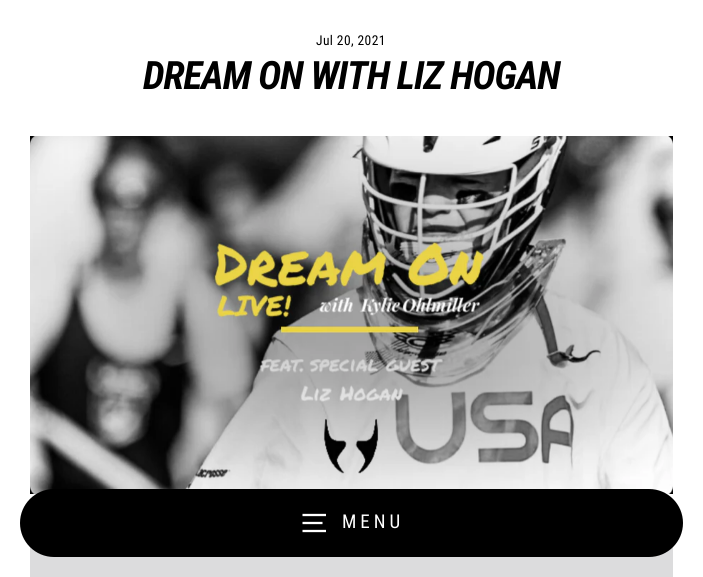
import math
import cairo

surface = cairo.ImageSurface(cairo.FORMAT_RGB24, 703, 577)
ctx = cairo.Context(surface)
options = cairo.FontOptions()
options.set_hint_metrics(cairo.HINT_METRICS_OFF)
options.set_hint_style(cairo.HINT_STYLE_NONE)
ctx.set_font_options(options)
ctx.set_miter_limit(4)


def set_color(code):
    ctx.set_source_rgb(*(v / 255 for v in bytes.fromhex(code[-6:])))


def draw_spaced(x, y, s, letter, word):
    ctx.move_to(x, y)
    for ch in s:
        ctx.show_text(ch)
        ctx.rel_move_to(letter + word * (ch == ' '), 0)


def fill_rect(x, y, w, h, color):
    set_color(color)
    ctx.rectangle(x, y, w, h)
    ctx.fill()


def rounded_rect(x, y, w, h, r):
    ctx.new_sub_path()
    for i, (u, v) in enumerate([(x + w - r, y + h - r), (x + r, y + h - r), (x + r, y + r), (x + w - r, y + r)]):
        ctx.arc(u, v, r, i * math.pi / 2, (i + 1) * math.pi / 2)
    ctx.close_path()


def draw_image(path, x, y, w, h):
    ctx.save()
    ctx.set_source_surface(cairo.ImageSurface.create_from_png(path), x, y)
    ctx.rectangle(x, y, w, h)
    ctx.fill()
    ctx.restore()


set_color("#ffffff")
ctx.paint()
ctx.select_font_face("Roboto Condensed")
ctx.set_font_size(13.5)
set_color("#000000")
draw_spaced(316, 45, "Jul 20, 2021", 0.4, 0)
ctx.select_font_face("Roboto Condensed", cairo.FONT_SLANT_ITALIC, cairo.FONT_WEIGHT_BOLD)
ctx.set_font_size(39.1)
draw_spaced(143, 89, "DREAM ON WITH LIZ HOGAN", -1, 0)
draw_image("assets/img1.png", 30, 136, 643, 358)
fill_rect(30, 547, 643, 30, "#dcdcdd")
set_color("#000000")
rounded_rect(20, 489, 663, 68, 34)
ctx.fill()
ctx.new_path()
ctx.move_to(302.5, 515)
ctx.line_to(326, 515)
ctx.move_to(302.5, 523)
ctx.line_to(322.5, 523)
ctx.move_to(302.5, 531)
ctx.line_to(326, 531)
set_color("#ffffff")
ctx.set_line_width(2.3)
ctx.stroke()
ctx.select_font_face("Roboto Condensed")
ctx.set_font_size(19)
draw_spaced(342, 528, "MENU", 4, 0)
surface.write_to_png("output.png")
